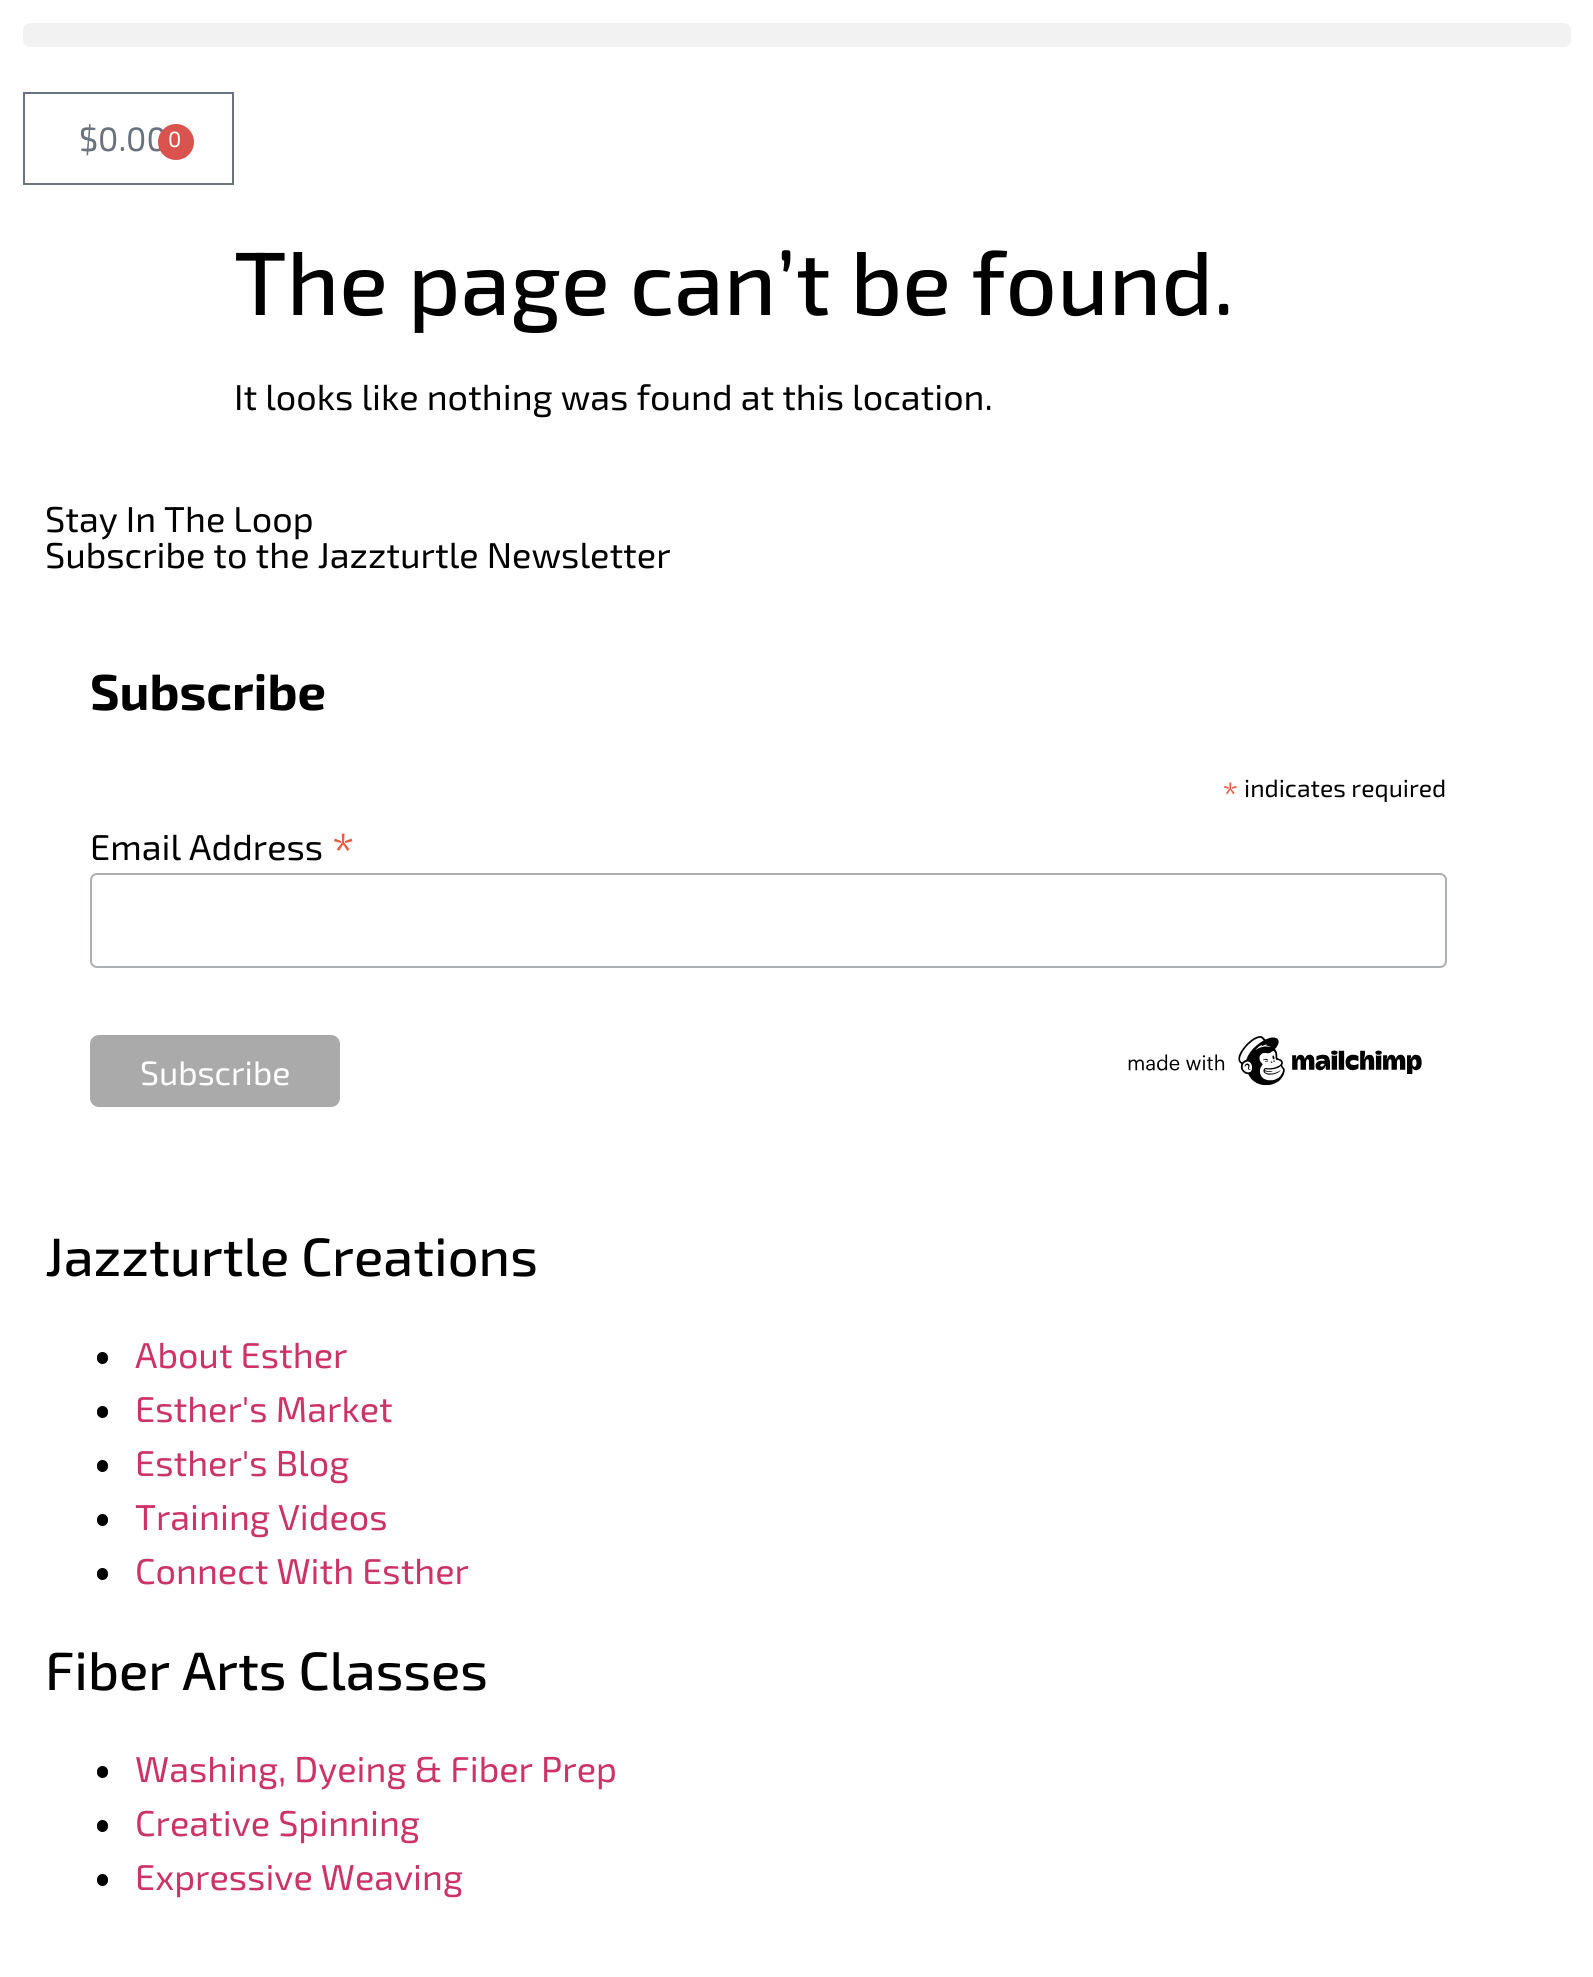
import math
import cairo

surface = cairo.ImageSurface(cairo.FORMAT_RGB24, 1593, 1977)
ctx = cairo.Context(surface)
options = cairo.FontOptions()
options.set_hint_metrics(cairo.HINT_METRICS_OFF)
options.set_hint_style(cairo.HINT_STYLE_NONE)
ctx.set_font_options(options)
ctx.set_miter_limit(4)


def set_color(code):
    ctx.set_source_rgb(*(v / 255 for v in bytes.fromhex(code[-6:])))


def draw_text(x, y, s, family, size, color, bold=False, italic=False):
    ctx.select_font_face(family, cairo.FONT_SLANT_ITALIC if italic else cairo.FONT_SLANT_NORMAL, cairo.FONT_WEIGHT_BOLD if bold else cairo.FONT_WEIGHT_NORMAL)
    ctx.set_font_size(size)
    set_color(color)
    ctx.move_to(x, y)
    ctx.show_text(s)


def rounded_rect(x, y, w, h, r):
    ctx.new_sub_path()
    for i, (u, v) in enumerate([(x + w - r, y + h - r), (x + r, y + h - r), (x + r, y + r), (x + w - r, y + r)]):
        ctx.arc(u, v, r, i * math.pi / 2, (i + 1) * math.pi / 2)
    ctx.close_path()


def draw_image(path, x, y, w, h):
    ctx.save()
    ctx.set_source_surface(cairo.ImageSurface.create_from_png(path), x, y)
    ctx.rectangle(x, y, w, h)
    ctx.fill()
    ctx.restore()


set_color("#ffffff")
ctx.paint()
set_color("#f2f2f2")
rounded_rect(23, 23, 1548, 24, 7)
ctx.fill()
ctx.rectangle(24, 93, 209, 91)
set_color("#69727d")
ctx.stroke()
draw_text(79, 151, "$0.00", "Exo 2", 33.75, "#69727d")
set_color("#d9534f")
ctx.new_path()
ctx.arc(176, 142, 18, 0, 2 * math.pi)
ctx.fill()
draw_text(168, 147, "0", "Exo 2", 22, "#ffffff")
draw_text(234, 315, "The page can’t be found.", "Exo 2 Medium", 90, "#000000")
draw_text(234, 410, "It looks like nothing was found at this location.", "Exo 2", 36, "#000000")
draw_text(45, 532, "Stay In The Loop", "Exo 2", 36, "#000000")
draw_text(45, 568, "Subscribe to the Jazzturtle Newsletter", "Exo 2", 36, "#000000")
draw_text(90, 710, "Subscribe", "Exo 2", 50.5, "#000000", bold=True)
draw_text(1222, 808, "*", "Exo 2", 37, "#e85c41")
draw_text(1244, 797, "indicates required", "Exo 2", 24.75, "#000000")
draw_text(90, 860, "Email Address", "Exo 2", 36, "#000000")
draw_text(331, 871, "*", "Exo 2", 54, "#e85c41")
rounded_rect(91, 874, 1355, 93, 6)
set_color("#abb0b2")
ctx.stroke()
set_color("#aaaaaa")
rounded_rect(90, 1035, 250, 72, 9)
ctx.fill()
draw_text(140, 1085, "Subscribe", "Exo 2", 33.75, "#ffffff")
draw_image("assets/img1.png", 1128, 1036, 294, 50)
draw_text(45, 1276, "Jazzturtle Creations", "Exo 2 Medium", 54, "#000000")
rounded_rect(97, 1352, 11, 12, 5.5)
ctx.fill()
draw_text(135, 1368, "About Esther", "Exo 2", 36, "#cc3366")
set_color("#000000")
rounded_rect(97, 1406, 11, 12, 5.5)
ctx.fill()
draw_text(135, 1422, "Esther's Market", "Exo 2", 36, "#cc3366")
set_color("#000000")
rounded_rect(97, 1460, 11, 12, 5.5)
ctx.fill()
draw_text(135, 1476, "Esther's Blog", "Exo 2", 36, "#cc3366")
set_color("#000000")
rounded_rect(97, 1514, 11, 12, 5.5)
ctx.fill()
draw_text(135, 1530, "Training Videos", "Exo 2", 36, "#cc3366")
set_color("#000000")
rounded_rect(97, 1568, 11, 12, 5.5)
ctx.fill()
draw_text(135, 1584, "Connect With Esther", "Exo 2", 36, "#cc3366")
draw_text(45, 1690, "Fiber Arts Classes", "Exo 2 Medium", 54, "#000000")
rounded_rect(97, 1766, 11, 12, 5.5)
ctx.fill()
draw_text(135, 1782, "Washing, Dyeing & Fiber Prep", "Exo 2", 36, "#cc3366")
set_color("#000000")
rounded_rect(97, 1820, 11, 12, 5.5)
ctx.fill()
draw_text(135, 1836, "Creative Spinning", "Exo 2", 36, "#cc3366")
set_color("#000000")
rounded_rect(97, 1874, 11, 12, 5.5)
ctx.fill()
draw_text(135, 1890, "Expressive Weaving", "Exo 2", 36, "#cc3366")
surface.write_to_png("output.png")
